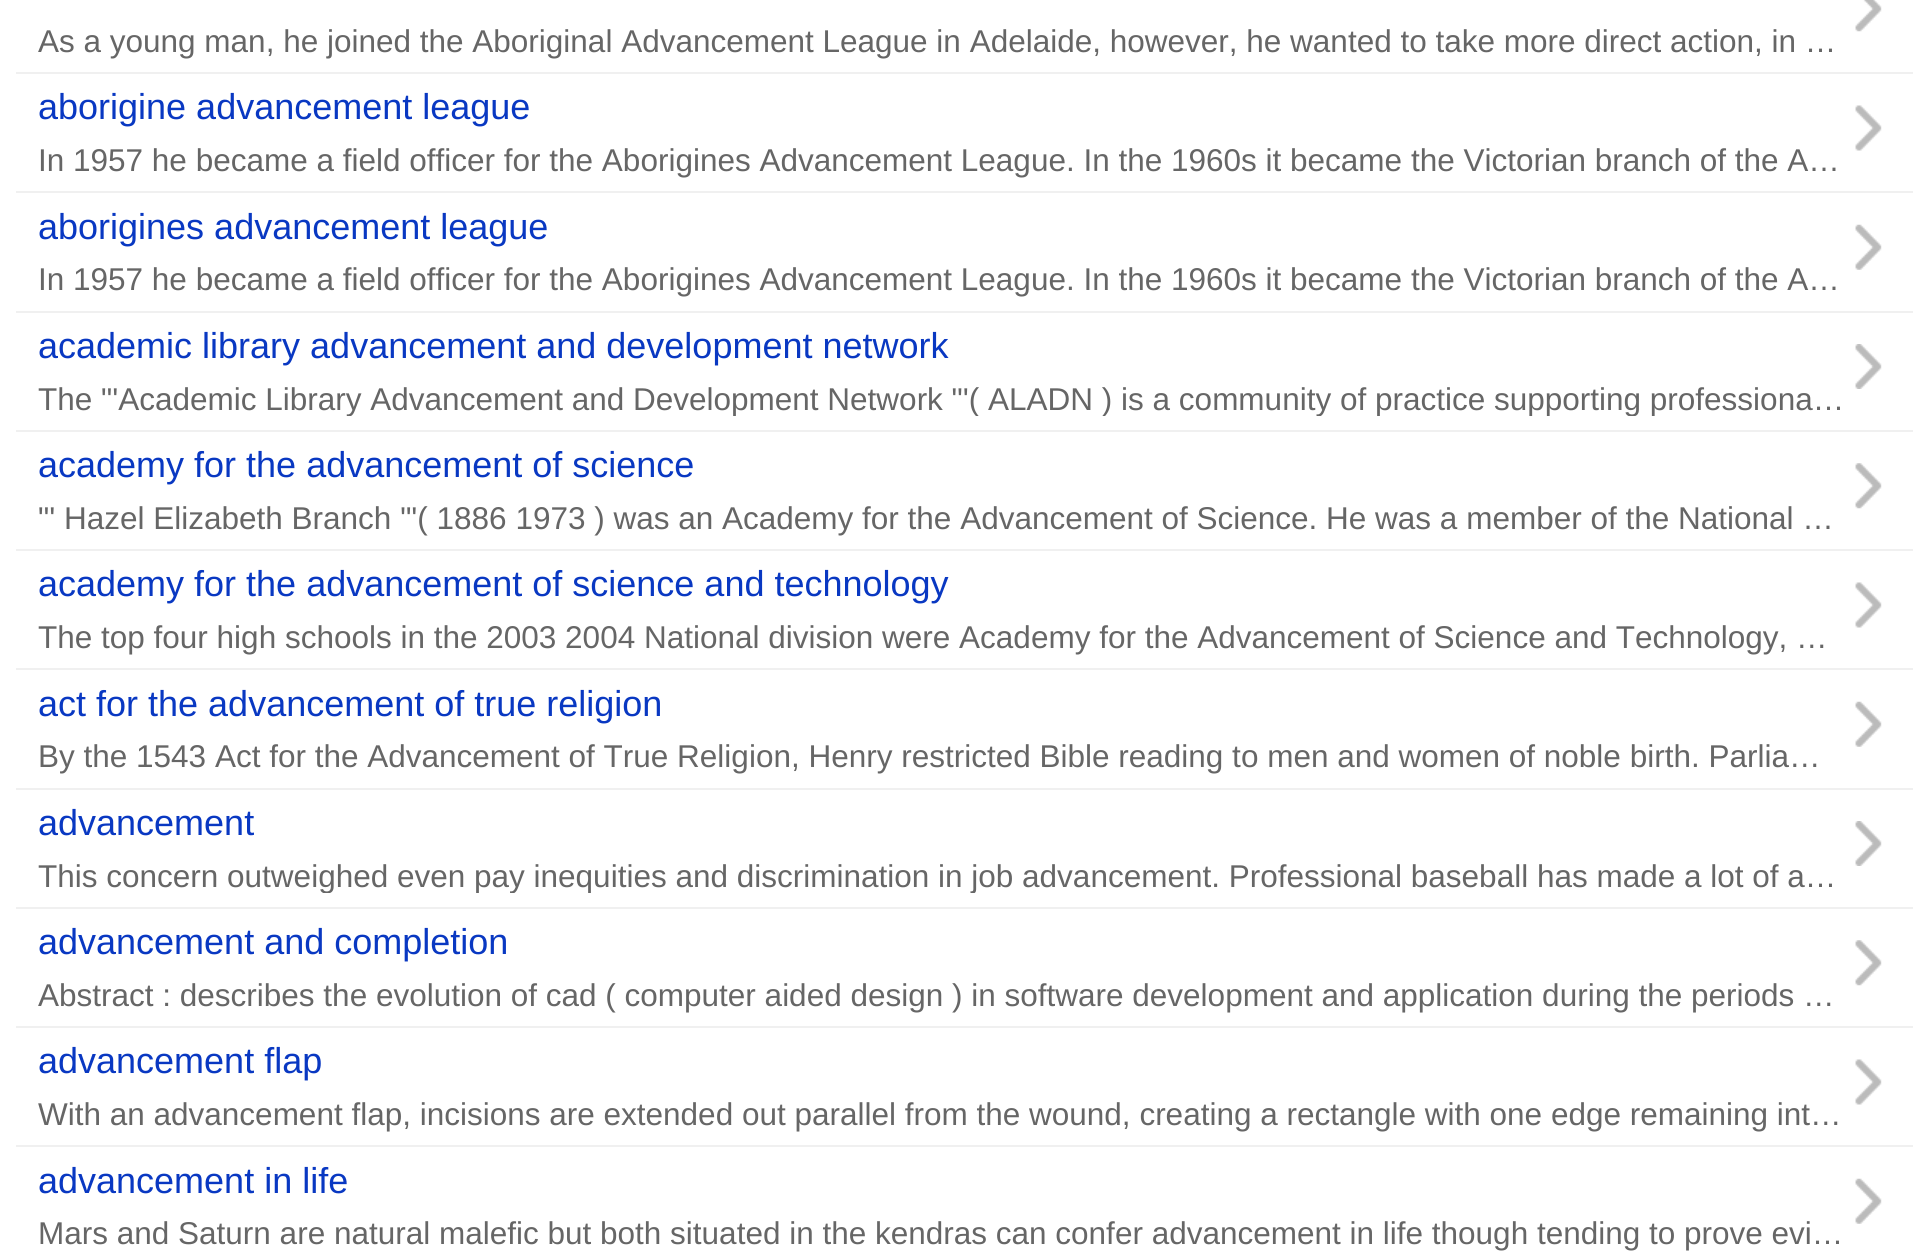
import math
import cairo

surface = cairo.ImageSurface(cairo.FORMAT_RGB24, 1927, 1258)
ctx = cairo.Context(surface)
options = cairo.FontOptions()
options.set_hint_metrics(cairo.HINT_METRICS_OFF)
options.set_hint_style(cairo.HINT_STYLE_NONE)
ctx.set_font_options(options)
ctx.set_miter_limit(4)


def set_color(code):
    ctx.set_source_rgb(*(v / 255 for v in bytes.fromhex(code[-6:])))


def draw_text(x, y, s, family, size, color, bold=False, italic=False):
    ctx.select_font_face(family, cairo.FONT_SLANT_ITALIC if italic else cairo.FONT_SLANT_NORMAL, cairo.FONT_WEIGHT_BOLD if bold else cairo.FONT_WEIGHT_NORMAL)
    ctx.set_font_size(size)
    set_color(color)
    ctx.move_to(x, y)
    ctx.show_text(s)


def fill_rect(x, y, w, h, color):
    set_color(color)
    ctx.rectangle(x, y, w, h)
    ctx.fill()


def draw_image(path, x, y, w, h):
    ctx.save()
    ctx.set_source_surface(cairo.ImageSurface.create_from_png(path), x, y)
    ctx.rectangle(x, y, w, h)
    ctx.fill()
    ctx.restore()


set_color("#ffffff")
ctx.paint()
draw_image("assets/img1.png", 1855, 0, 27, 32)
draw_text(38, 52, "As a young man, he joined the Aboriginal Advancement League in Adelaide, however, he wanted to take more direct action, in …", "Liberation Sans", 31.5, "#666666")
fill_rect(16, 72, 1897, 2, "#f0f0f0")
draw_text(38, 119, "aborigine advancement league", "Liberation Sans", 36, "#0938c2")
draw_text(38, 171, "In 1957 he became a field officer for the Aborigines Advancement League. In the 1960s it became the Victorian branch of the A…", "Liberation Sans", 31.5, "#666666")
draw_image("assets/img2.png", 1855, 105, 27, 46)
fill_rect(16, 191, 1897, 2, "#f0f0f0")
draw_text(38, 239, "aborigines advancement league", "Liberation Sans", 36, "#0938c2")
draw_text(38, 290, "In 1957 he became a field officer for the Aborigines Advancement League. In the 1960s it became the Victorian branch of the A…", "Liberation Sans", 31.5, "#666666")
draw_image("assets/img3.png", 1855, 224, 27, 46)
fill_rect(16, 311, 1897, 2, "#f0f0f0")
draw_text(38, 358, "academic library advancement and development network", "Liberation Sans", 36, "#0938c2")
ctx.save()
ctx.rectangle(38, 380, 1807, 36)
ctx.clip()
draw_text(38, 410, "The \"'Academic Library Advancement and Development Network \"'( ALADN ) is a community of practice supporting professiona…", "Liberation Sans", 31.5, "#666666")
ctx.restore()
draw_image("assets/img4.png", 1855, 344, 27, 45)
fill_rect(16, 430, 1897, 2, "#f0f0f0")
draw_text(38, 477, "academy for the advancement of science", "Liberation Sans", 36, "#0938c2")
draw_text(38, 529, "\"' Hazel Elizabeth Branch \"'( 1886 1973 ) was an Academy for the Advancement of Science. He was a member of the National …", "Liberation Sans", 31.5, "#666666")
draw_image("assets/img5.png", 1855, 463, 27, 46)
fill_rect(16, 549, 1897, 2, "#f0f0f0")
draw_text(38, 596, "academy for the advancement of science and technology", "Liberation Sans", 36, "#0938c2")
draw_text(38, 648, "The top four high schools in the 2003 2004 National division were Academy for the Advancement of Science and Technology, …", "Liberation Sans", 31.5, "#666666")
draw_image("assets/img2.png", 1855, 582, 27, 46)
fill_rect(16, 668, 1897, 2, "#f0f0f0")
draw_text(38, 716, "act for the advancement of true religion", "Liberation Sans", 36, "#0938c2")
draw_text(38, 767, "By the 1543 Act for the Advancement of True Religion, Henry restricted Bible reading to men and women of noble birth. Parlia…", "Liberation Sans", 31.5, "#666666")
draw_image("assets/img3.png", 1855, 701, 27, 46)
fill_rect(16, 788, 1897, 2, "#f0f0f0")
draw_text(38, 835, "advancement", "Liberation Sans", 36, "#0938c2")
ctx.save()
ctx.rectangle(38, 857, 1807, 36)
ctx.clip()
draw_text(38, 887, "This concern outweighed even pay inequities and discrimination in job advancement. Professional baseball has made a lot of a…", "Liberation Sans", 31.5, "#666666")
ctx.restore()
draw_image("assets/img4.png", 1855, 821, 27, 45)
fill_rect(16, 907, 1897, 2, "#f0f0f0")
draw_text(38, 954, "advancement and completion", "Liberation Sans", 36, "#0938c2")
draw_text(38, 1006, "Abstract : describes the evolution of cad ( computer aided design ) in software development and application during the periods …", "Liberation Sans", 31.5, "#666666")
draw_image("assets/img5.png", 1855, 940, 27, 46)
fill_rect(16, 1026, 1897, 2, "#f0f0f0")
draw_text(38, 1073, "advancement flap", "Liberation Sans", 36, "#0938c2")
draw_text(38, 1125, "With an advancement flap, incisions are extended out parallel from the wound, creating a rectangle with one edge remaining int…", "Liberation Sans", 31.5, "#666666")
draw_image("assets/img2.png", 1855, 1059, 27, 46)
fill_rect(16, 1145, 1897, 2, "#f0f0f0")
draw_text(38, 1193, "advancement in life", "Liberation Sans", 36, "#0938c2")
draw_text(38, 1244, "Mars and Saturn are natural malefic but both situated in the kendras can confer advancement in life though tending to prove evi…", "Liberation Sans", 31.5, "#666666")
draw_image("assets/img3.png", 1855, 1178, 27, 46)
surface.write_to_png("output.png")
